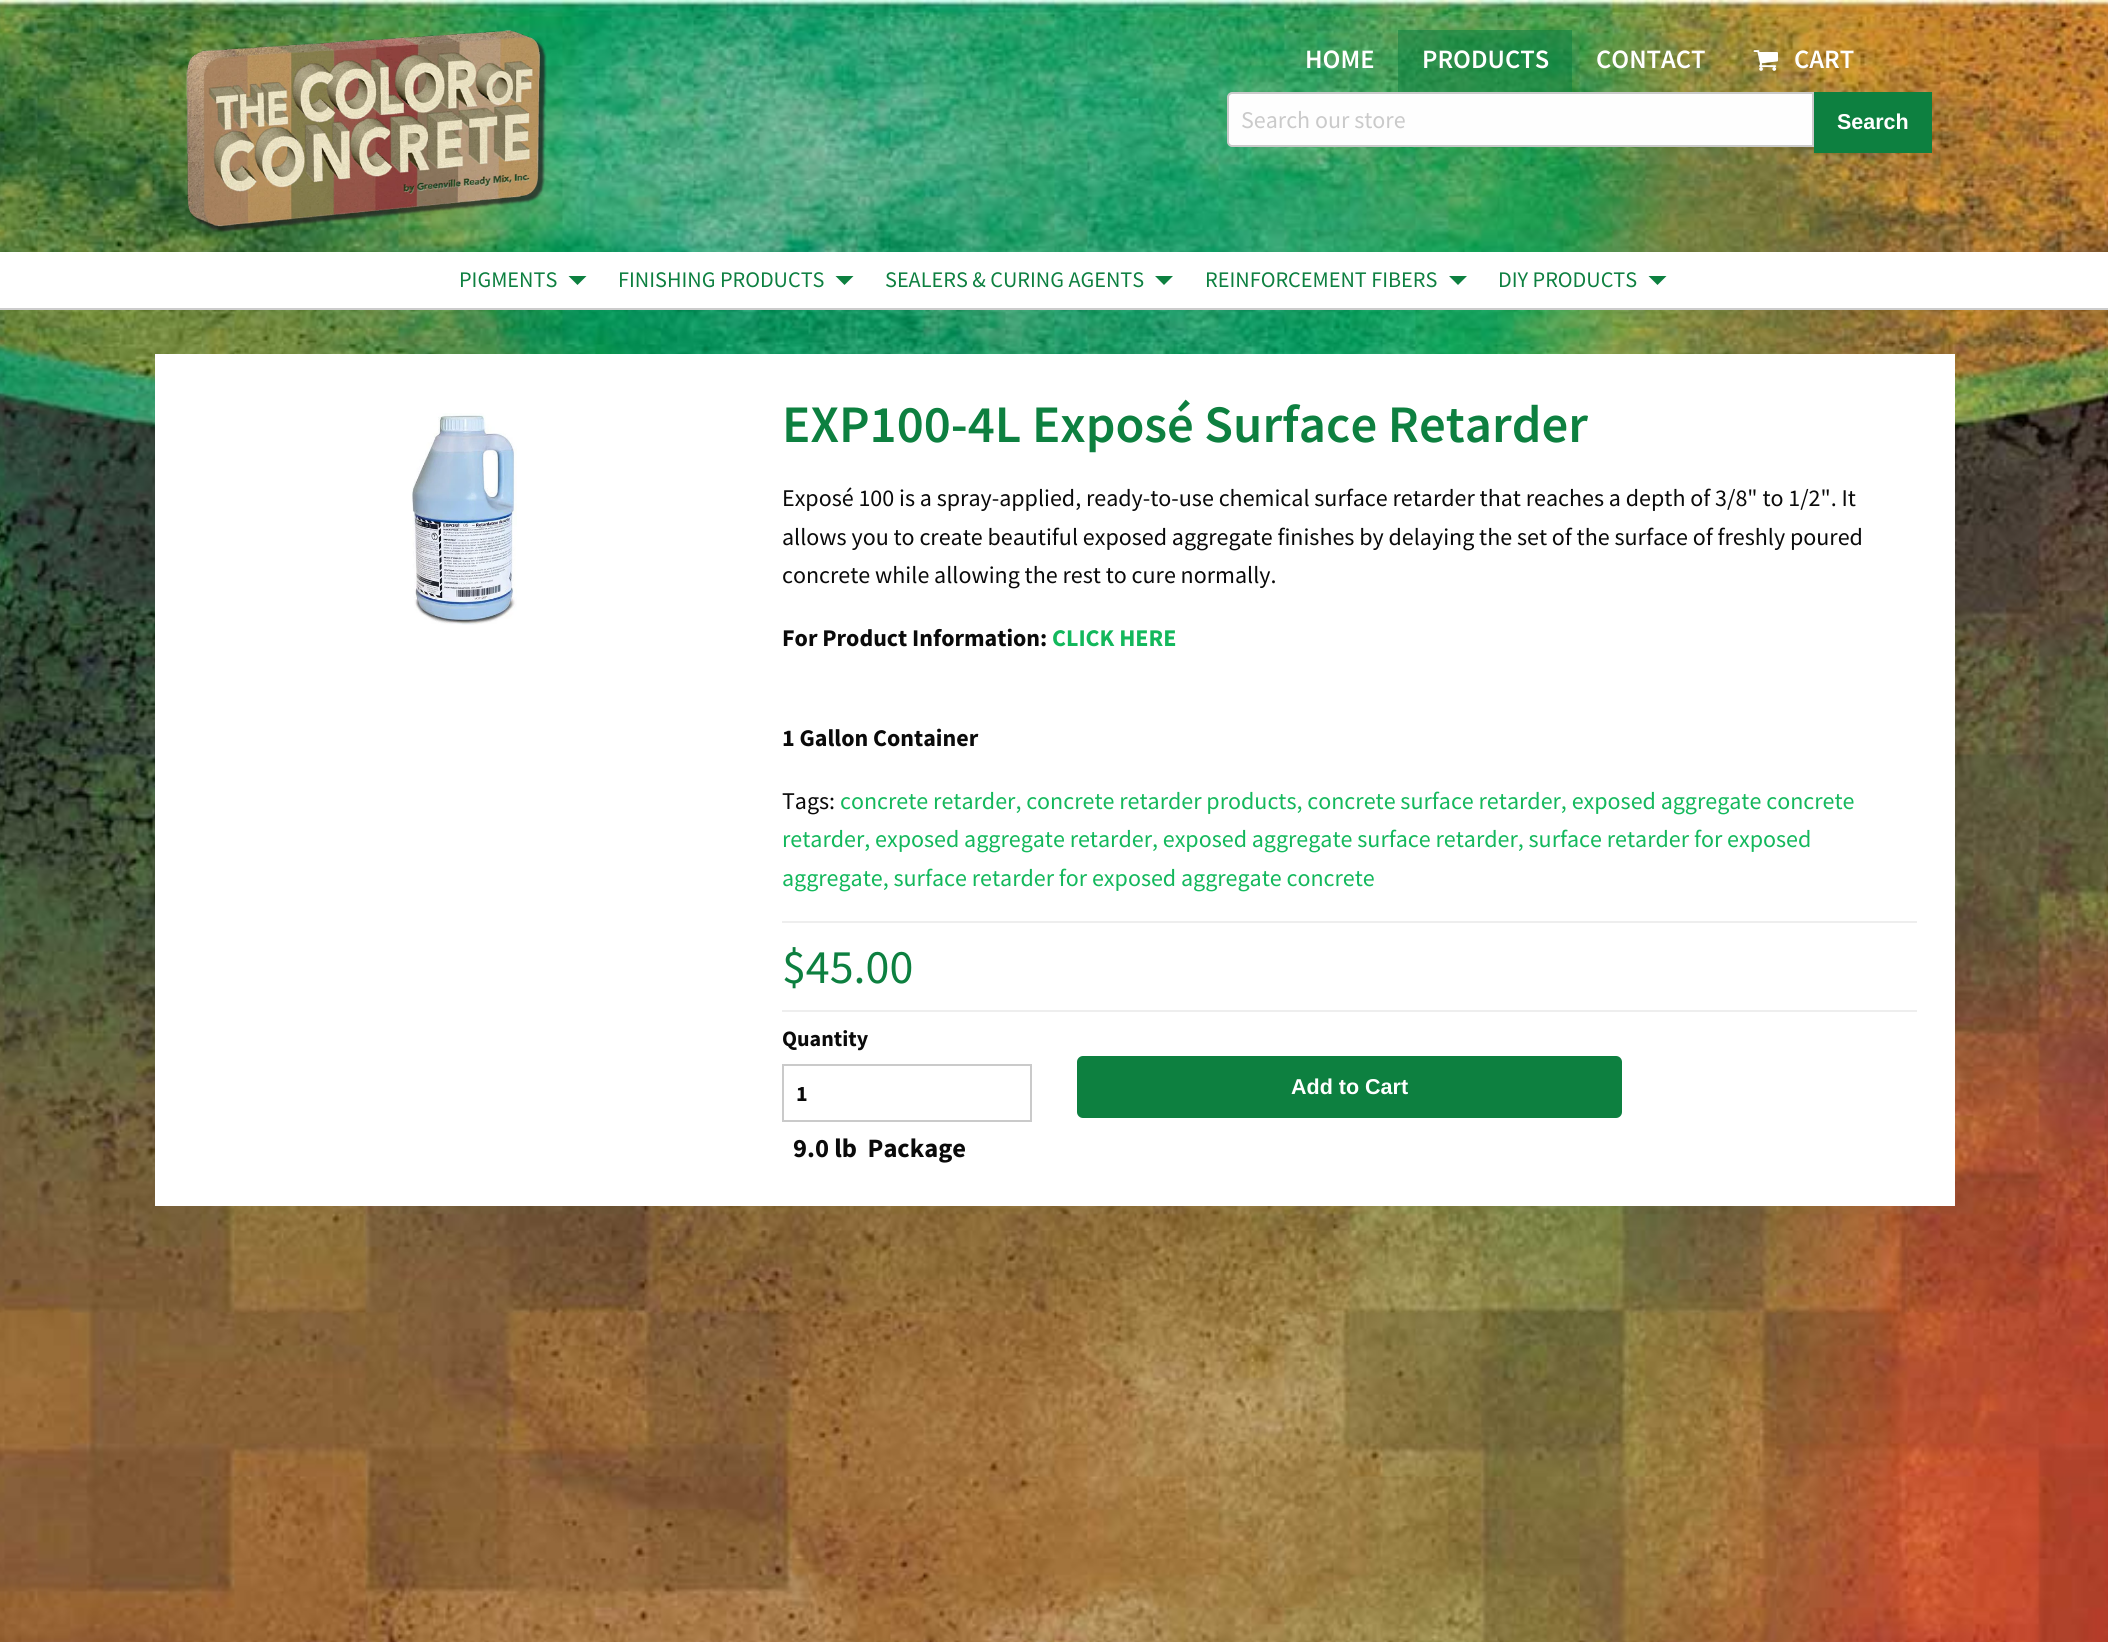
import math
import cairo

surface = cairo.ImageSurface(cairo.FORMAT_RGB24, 2108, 1642)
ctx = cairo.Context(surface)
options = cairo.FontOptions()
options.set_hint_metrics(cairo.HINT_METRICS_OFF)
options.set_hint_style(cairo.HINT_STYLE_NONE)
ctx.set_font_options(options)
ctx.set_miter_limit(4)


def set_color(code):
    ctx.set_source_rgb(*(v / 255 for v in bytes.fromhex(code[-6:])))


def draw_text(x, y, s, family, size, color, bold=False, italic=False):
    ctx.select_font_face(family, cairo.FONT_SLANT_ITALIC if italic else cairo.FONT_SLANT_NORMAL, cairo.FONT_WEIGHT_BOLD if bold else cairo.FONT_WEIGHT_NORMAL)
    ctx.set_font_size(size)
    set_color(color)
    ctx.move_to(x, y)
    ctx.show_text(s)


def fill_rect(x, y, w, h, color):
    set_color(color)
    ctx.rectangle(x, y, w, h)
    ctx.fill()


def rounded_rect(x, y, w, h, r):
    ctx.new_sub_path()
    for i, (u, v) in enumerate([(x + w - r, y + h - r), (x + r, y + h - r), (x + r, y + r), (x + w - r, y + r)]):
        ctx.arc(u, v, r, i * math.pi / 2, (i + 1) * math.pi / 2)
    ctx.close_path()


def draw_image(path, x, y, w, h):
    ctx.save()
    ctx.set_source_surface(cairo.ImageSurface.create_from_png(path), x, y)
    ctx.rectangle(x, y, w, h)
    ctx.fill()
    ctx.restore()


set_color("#ffffff")
ctx.paint()
draw_image("assets/img1.png", 0, 0, 2108, 1642)
draw_image("assets/img2.png", 186, 30, 361, 203)
draw_text(1305, 68, "HOME", "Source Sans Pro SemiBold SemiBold", 26.5, "#ffffff")
ctx.set_source_rgba(0.051, 0.502, 0.251, 0.55)
ctx.rectangle(1398, 30, 174, 62)
ctx.fill()
draw_text(1422, 68, "PRODUCTS", "Source Sans Pro SemiBold SemiBold", 26.5, "#ffffff")
draw_text(1596, 68, "CONTACT", "Source Sans Pro SemiBold SemiBold", 26.5, "#ffffff")
draw_image("assets/img3.png", 1753, 50, 25, 21)
draw_text(1794, 68, "CART", "Source Sans Pro SemiBold SemiBold", 26.5, "#ffffff")
set_color("#fefefe")
ctx.new_path()
ctx.move_to(1232, 93)
ctx.line_to(1813, 93)
ctx.line_to(1813, 146)
ctx.line_to(1232, 146)
ctx.curve_to(1230, 146, 1228, 144, 1228, 142)
ctx.line_to(1228, 97)
ctx.curve_to(1228, 95, 1230, 93, 1232, 93)
ctx.close_path()
ctx.fill_preserve()
set_color("#cacaca")
ctx.stroke()
draw_text(1241, 128, "Search our store", "Source Sans Pro", 24, "#cacaca")
fill_rect(1814, 92, 118, 61, "#0d8040")
draw_text(1837, 129, "Search", "Liberation Sans", 21.5, "#ffffff", bold=True)
fill_rect(0, 252, 2108, 56, "#ffffff")
fill_rect(0, 308, 2108, 2, "#cccccc")
draw_text(459, 287, "PIGMENTS", "Source Sans Pro", 22.25, "#0d8040")
ctx.new_path()
ctx.move_to(568.5, 276)
ctx.line_to(586.5, 276)
ctx.line_to(577.5, 285)
ctx.close_path()
ctx.fill()
draw_text(618, 287, "FINISHING PRODUCTS", "Source Sans Pro", 22.25, "#0d8040")
ctx.new_path()
ctx.move_to(835.5, 276)
ctx.line_to(853.5, 276)
ctx.line_to(844.5, 285)
ctx.close_path()
ctx.fill()
draw_text(885, 287, "SEALERS & CURING AGENTS", "Source Sans Pro", 22.25, "#0d8040")
ctx.new_path()
ctx.move_to(1155, 276)
ctx.line_to(1173, 276)
ctx.line_to(1164, 285)
ctx.close_path()
ctx.fill()
draw_text(1205, 287, "REINFORCEMENT FIBERS", "Source Sans Pro", 22.25, "#0d8040")
ctx.new_path()
ctx.move_to(1449, 276)
ctx.line_to(1467, 276)
ctx.line_to(1458, 285)
ctx.close_path()
ctx.fill()
draw_text(1498, 287, "DIY PRODUCTS", "Source Sans Pro", 22.25, "#0d8040")
ctx.new_path()
ctx.move_to(1648.5, 276)
ctx.line_to(1666.5, 276)
ctx.line_to(1657.5, 285)
ctx.close_path()
ctx.fill()
fill_rect(155, 354, 1800, 852, "#ffffff")
draw_image("assets/img4.png", 411, 413, 106, 212)
draw_text(782, 442, "EXP100-4L Exposé Surface Retarder", "Source Sans Pro SemiBold SemiBold", 52.75, "#0d8040")
draw_text(782, 506, "Exposé 100 is a spray-applied, ready-to-use chemical surface retarder that reaches a depth of 3/8\" to 1/2\". It", "Source Sans Pro", 24, "#0a0a0a")
draw_text(782, 545, "allows you to create beautiful exposed aggregate finishes by delaying the set of the surface of freshly poured", "Source Sans Pro", 24, "#0a0a0a")
draw_text(782, 583, "concrete while allowing the rest to cure normally.", "Source Sans Pro", 24, "#0a0a0a")
draw_text(782, 646, "For Product Information:", "Source Sans Pro", 24, "#0a0a0a", bold=True)
draw_text(1052, 646, "CLICK HERE", "Source Sans Pro", 24, "#13b85c", bold=True)
draw_text(782, 746, "1 Gallon Container", "Source Sans Pro", 24, "#0a0a0a", bold=True)
draw_text(782, 809, "Tags:", "Source Sans Pro", 24, "#0a0a0a")
draw_text(840, 809, "concrete retarder, concrete retarder products, concrete surface retarder, exposed aggregate concrete", "Source Sans Pro", 24, "#13b85c")
draw_text(782, 847, "retarder, exposed aggregate retarder, exposed aggregate surface retarder, surface retarder for exposed", "Source Sans Pro", 24, "#13b85c")
draw_text(782, 886, "aggregate, surface retarder for exposed aggregate concrete", "Source Sans Pro", 24, "#13b85c")
fill_rect(782, 921, 1135, 2, "#eeeeee")
fill_rect(782, 1010, 1135, 2, "#eeeeee")
draw_text(782, 983, "$45.00", "Source Sans Pro", 48, "#0d8040")
draw_text(782, 1046, "Quantity", "Source Sans Pro", 22, "#0a0a0a", bold=True)
ctx.rectangle(783, 1065, 248, 56)
set_color("#cacaca")
ctx.stroke()
draw_text(796, 1101, "1", "Source Sans Pro", 22, "#0a0a0a", bold=True)
draw_text(793, 1157, "9.0 lb  Package", "Source Sans Pro", 26.5, "#0a0a0a", bold=True)
set_color("#0d8040")
rounded_rect(1077, 1056, 545, 62, 6)
ctx.fill()
draw_text(1291, 1094, "Add to Cart", "Liberation Sans", 21.5, "#ffffff", bold=True)
surface.write_to_png("output.png")
